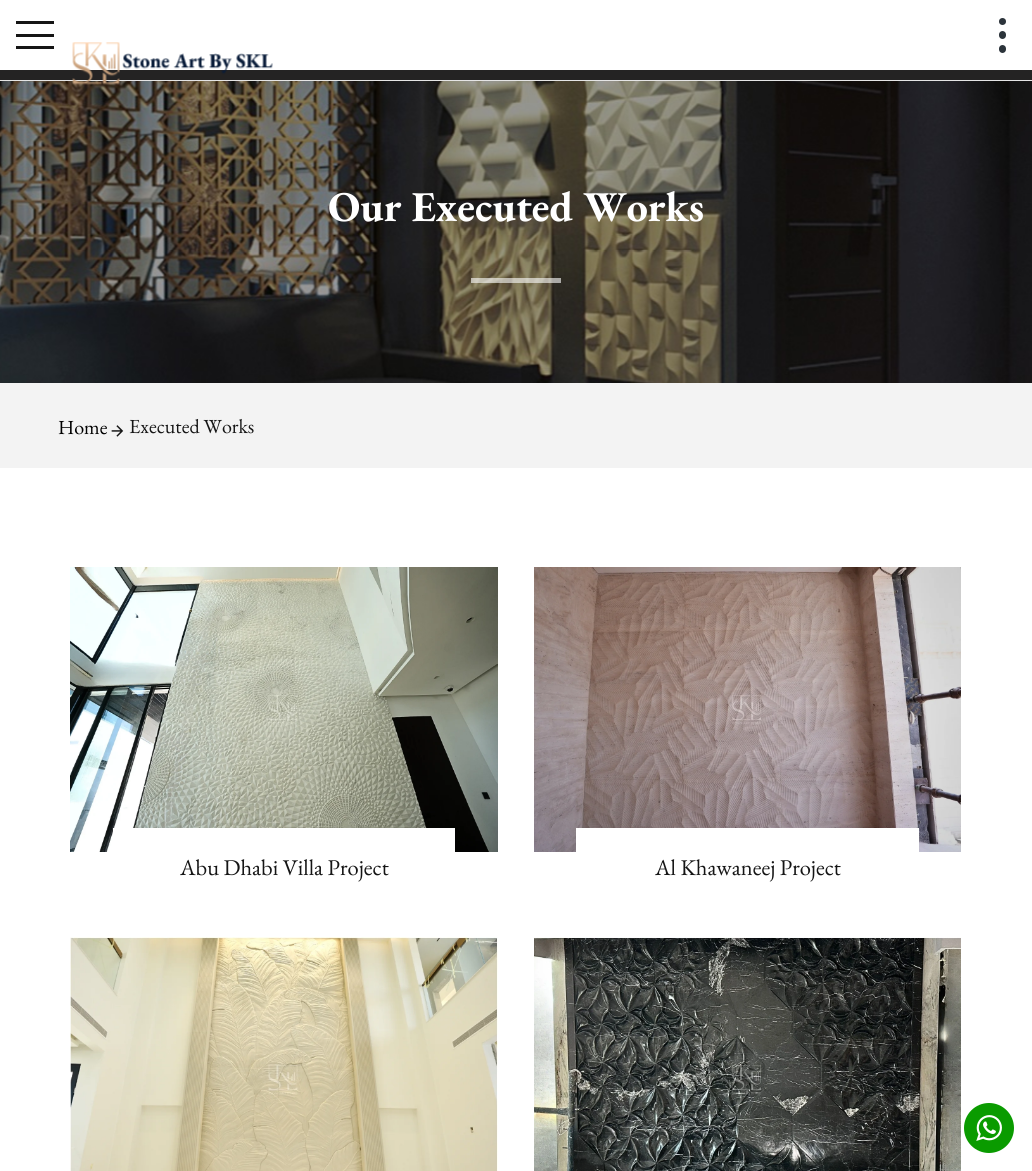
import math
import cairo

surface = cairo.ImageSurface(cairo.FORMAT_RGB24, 1032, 1171)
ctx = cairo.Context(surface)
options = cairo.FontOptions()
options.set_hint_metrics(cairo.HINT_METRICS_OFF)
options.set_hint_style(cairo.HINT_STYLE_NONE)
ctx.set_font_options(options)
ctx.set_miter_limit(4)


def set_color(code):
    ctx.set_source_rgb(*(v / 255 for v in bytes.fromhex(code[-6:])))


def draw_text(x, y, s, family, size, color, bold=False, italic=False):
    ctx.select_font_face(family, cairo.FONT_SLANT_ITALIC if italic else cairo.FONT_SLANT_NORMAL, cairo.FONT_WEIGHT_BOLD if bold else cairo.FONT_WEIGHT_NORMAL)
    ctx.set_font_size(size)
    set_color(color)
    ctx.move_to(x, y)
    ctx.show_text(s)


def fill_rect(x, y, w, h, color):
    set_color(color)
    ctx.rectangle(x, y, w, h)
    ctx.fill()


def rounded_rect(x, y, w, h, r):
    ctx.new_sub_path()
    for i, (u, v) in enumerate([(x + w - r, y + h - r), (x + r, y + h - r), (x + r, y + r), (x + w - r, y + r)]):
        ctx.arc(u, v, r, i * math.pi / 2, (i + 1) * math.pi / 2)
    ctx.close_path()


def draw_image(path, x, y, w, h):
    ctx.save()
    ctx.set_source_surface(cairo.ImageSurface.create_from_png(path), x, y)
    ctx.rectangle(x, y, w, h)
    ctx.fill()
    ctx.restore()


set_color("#ffffff")
ctx.paint()
fill_rect(16, 34, 38, 3, "#151515")
fill_rect(16, 21, 38, 3, "#151515")
fill_rect(16, 46, 38, 3, "#151515")
fill_rect(0, 70, 1032, 10, "#242323")
fill_rect(0, 80, 1032, 1, "#e5e5e5")
draw_image("assets/img2.png", 0, 81, 1032, 302)
draw_image("assets/img1.png", 72, 42, 201, 43)
set_color("#2c343b")
rounded_rect(999, 31, 7, 8, 3.5)
ctx.fill()
ctx.arc(1002.5, 21.5, 3.5, 0, 2 * math.pi)
ctx.fill()
rounded_rect(999, 45, 7, 8, 3.5)
ctx.fill()
fill_rect(0, 383, 1032, 85, "#f3f3f3")
draw_text(328, 221, "Our Executed Works", "EB Garamond", 42.5, "#ffffff", bold=True)
ctx.set_source_rgba(1, 1, 1, 0.6)
ctx.rectangle(471, 278, 90, 5)
ctx.fill()
draw_text(58, 434, "Home", "EB Garamond", 20, "#000000")
draw_image("assets/img3.png", 111, 425, 13, 12)
draw_text(129, 433, "Executed Works", "EB Garamond", 20, "#151515")
draw_image("assets/img4.png", 70, 567, 428, 285)
fill_rect(113, 828, 342, 24, "#ffffff")
draw_text(180, 875, "Abu Dhabi Villa Project", "EB Garamond", 22.5, "#151515")
draw_image("assets/img5.png", 534, 567, 427, 285)
fill_rect(576, 828, 343, 24, "#ffffff")
draw_text(655, 875, "Al Khawaneej Project", "EB Garamond", 22.5, "#151515")
draw_image("assets/img6.png", 70, 937, 428, 234)
draw_image("assets/img7.png", 534, 937, 427, 234)
set_color("#0a9b00")
ctx.arc(989, 1128, 25, 0, 2 * math.pi)
ctx.fill()
draw_image("assets/img8.png", 976, 1115, 26, 26)
surface.write_to_png("output.png")
